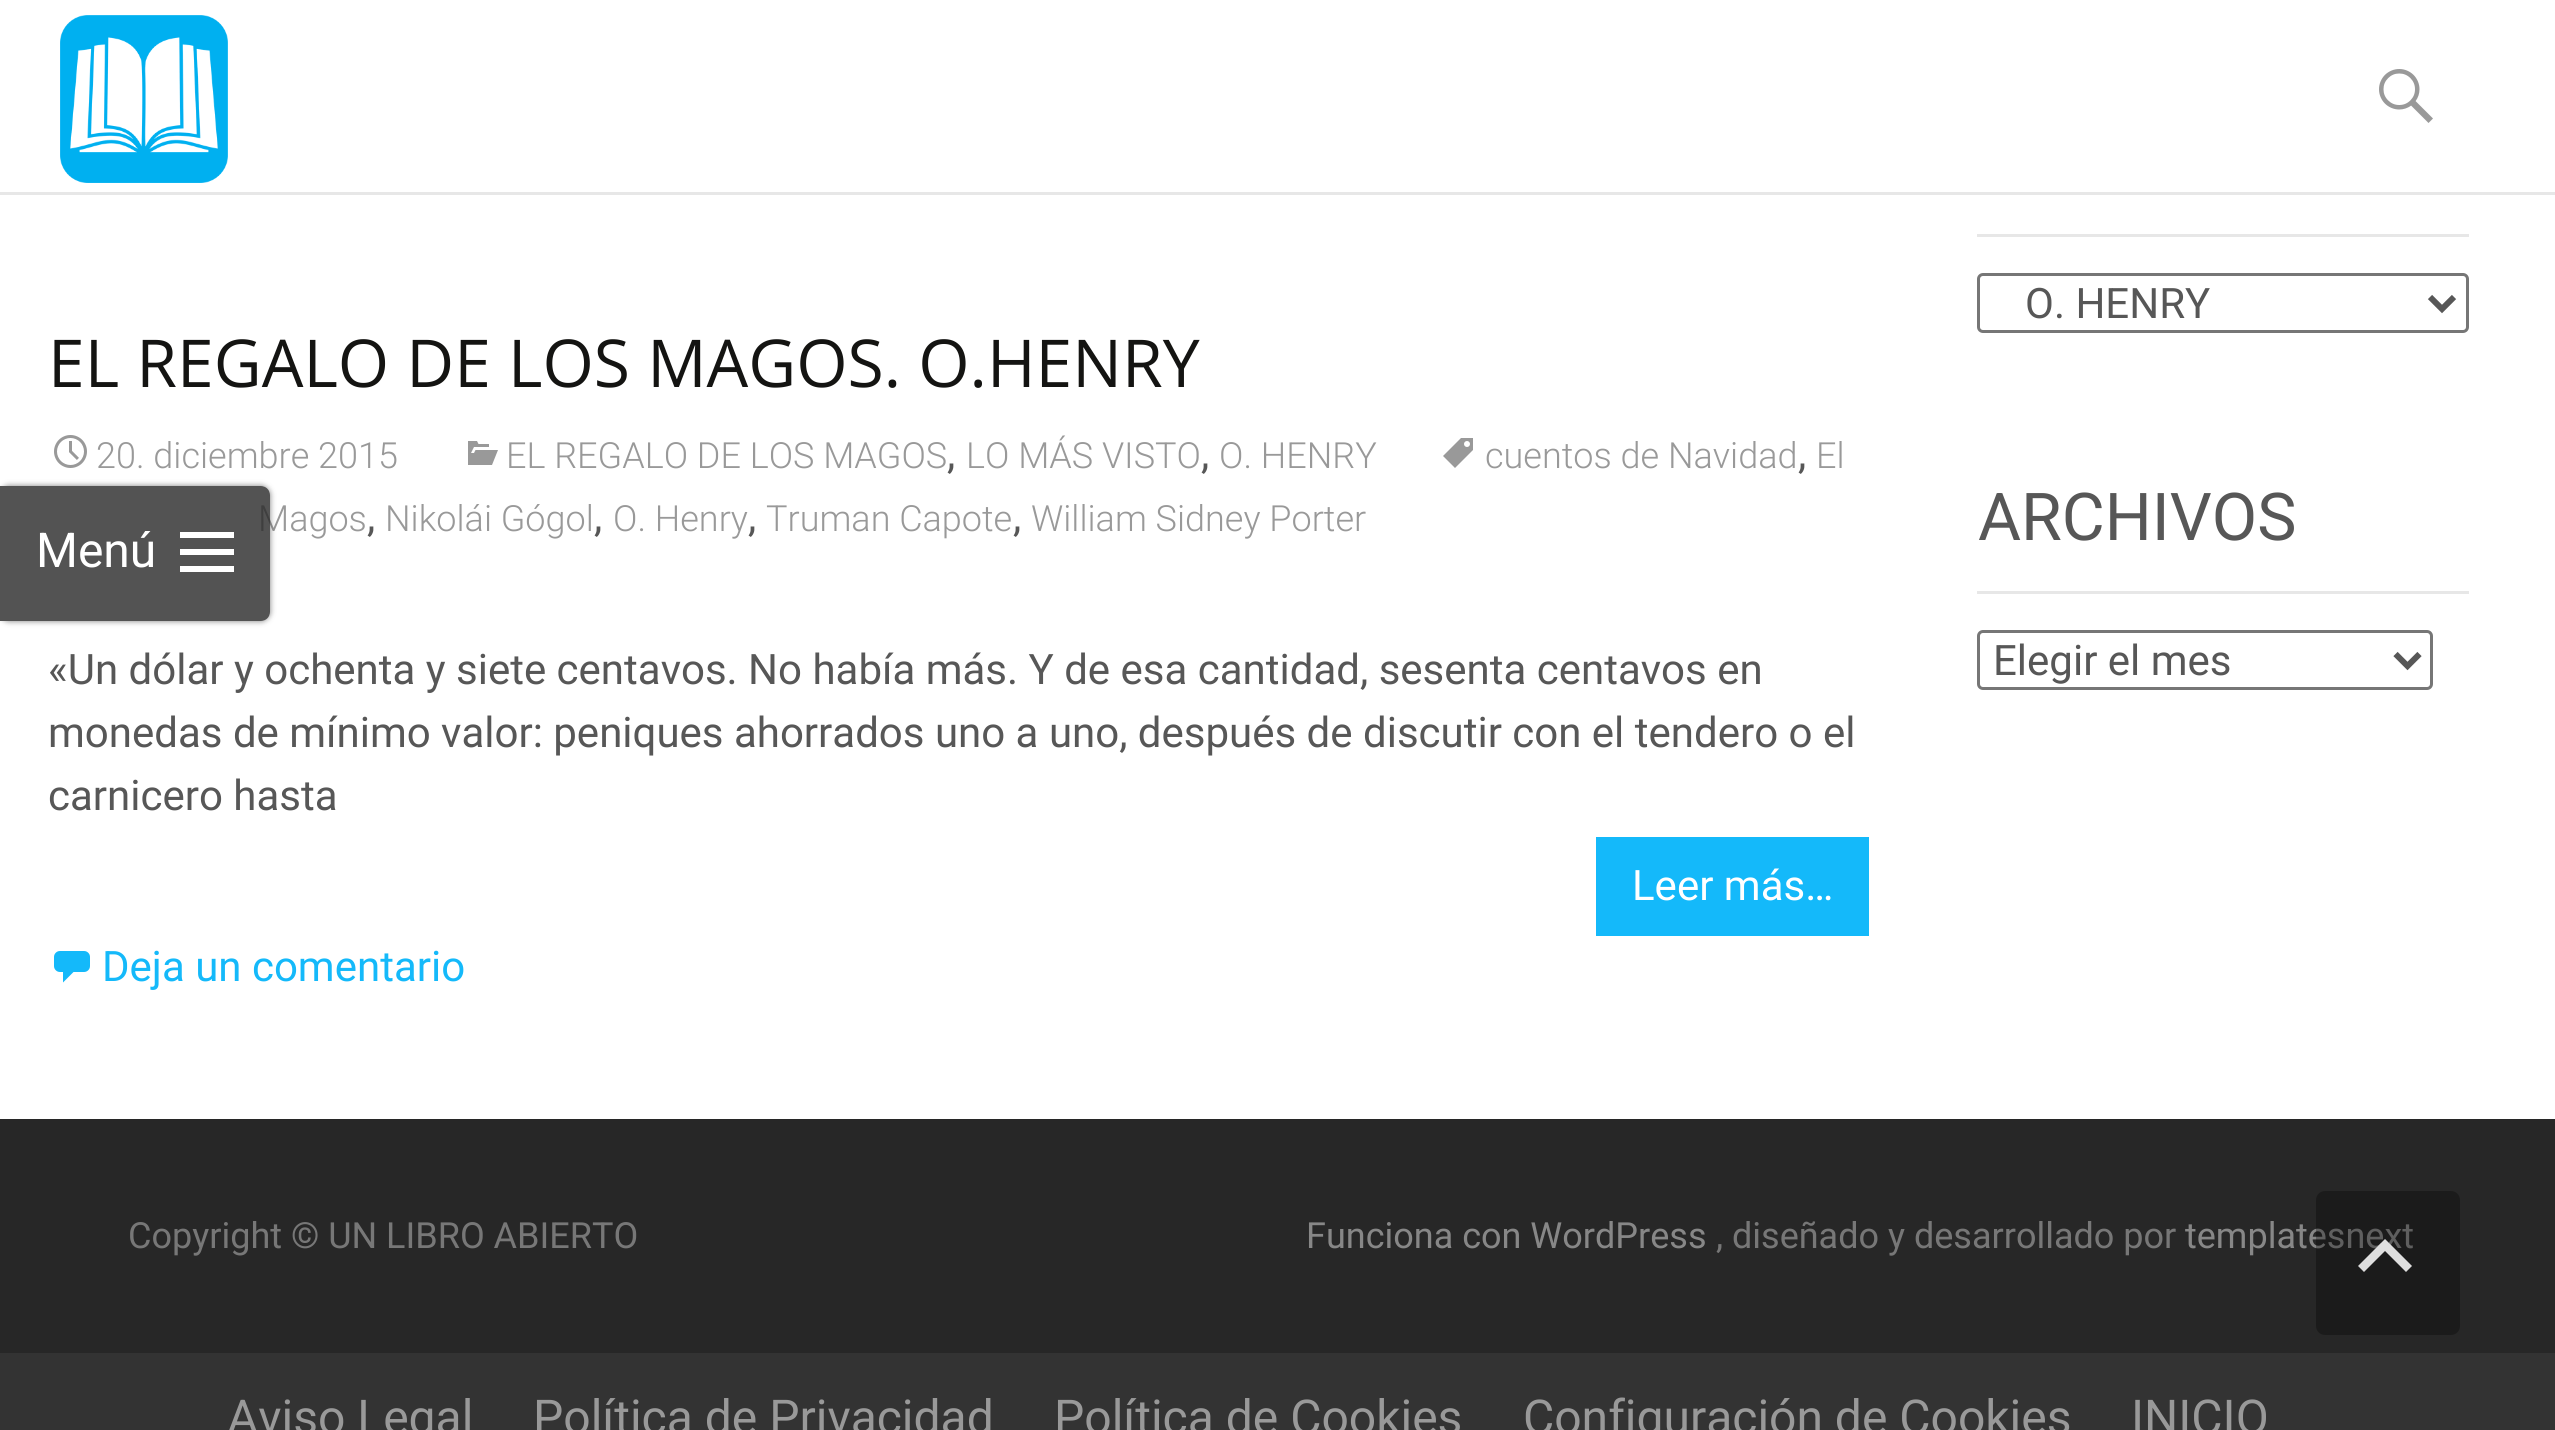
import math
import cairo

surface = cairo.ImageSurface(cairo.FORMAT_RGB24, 2555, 1430)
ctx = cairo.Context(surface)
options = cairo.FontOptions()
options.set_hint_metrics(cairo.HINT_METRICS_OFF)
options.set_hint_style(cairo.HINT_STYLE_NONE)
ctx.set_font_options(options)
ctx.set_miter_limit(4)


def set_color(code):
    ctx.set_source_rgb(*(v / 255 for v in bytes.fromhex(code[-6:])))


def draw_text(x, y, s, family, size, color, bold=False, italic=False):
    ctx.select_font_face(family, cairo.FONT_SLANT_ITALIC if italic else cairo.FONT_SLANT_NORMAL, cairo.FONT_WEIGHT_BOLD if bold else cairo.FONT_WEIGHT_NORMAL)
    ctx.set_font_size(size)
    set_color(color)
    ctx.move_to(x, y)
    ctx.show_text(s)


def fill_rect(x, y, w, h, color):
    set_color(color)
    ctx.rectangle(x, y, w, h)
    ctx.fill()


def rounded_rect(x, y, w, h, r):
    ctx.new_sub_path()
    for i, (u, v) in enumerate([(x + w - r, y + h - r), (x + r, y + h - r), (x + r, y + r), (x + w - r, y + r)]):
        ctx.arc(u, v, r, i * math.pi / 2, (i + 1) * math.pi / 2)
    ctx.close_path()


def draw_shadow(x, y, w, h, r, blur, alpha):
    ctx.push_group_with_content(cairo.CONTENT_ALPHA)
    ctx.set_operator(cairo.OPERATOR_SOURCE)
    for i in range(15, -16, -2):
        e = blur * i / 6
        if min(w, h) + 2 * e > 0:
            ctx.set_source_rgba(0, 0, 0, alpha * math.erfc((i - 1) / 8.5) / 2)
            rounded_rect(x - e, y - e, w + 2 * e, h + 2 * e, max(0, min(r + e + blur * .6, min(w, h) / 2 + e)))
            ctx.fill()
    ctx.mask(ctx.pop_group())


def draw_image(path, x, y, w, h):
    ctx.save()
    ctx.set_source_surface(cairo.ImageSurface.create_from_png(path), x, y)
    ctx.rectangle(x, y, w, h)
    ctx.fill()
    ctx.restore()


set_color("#333333")
ctx.paint()
fill_rect(0, 195, 2555, 924, "#ffffff")
draw_text(48, 387, "EL REGALO DE LOS MAGOS. O.HENRY", "Open Sans", 66, "#141412")
draw_image("assets/img1.png", 54, 435, 33, 33)
draw_text(96, 468, "20. diciembre 2015", "Roboto Light", 36, "#999999")
draw_image("assets/img2.png", 468, 441, 30, 24)
draw_text(506, 468, "EL REGALO DE LOS MAGOS", "Roboto Light", 36, "#999999")
draw_text(947, 468, ",", "Roboto", 42, "#575757")
draw_text(966, 468, "LO MÁS VISTO", "Roboto Light", 36, "#999999")
draw_text(1201, 468, ",", "Roboto", 42, "#575757")
draw_text(1219, 468, "O. HENRY", "Roboto Light", 36, "#999999")
draw_image("assets/img3.png", 1443, 438, 30, 30)
draw_text(1485, 468, "cuentos de Navidad", "Roboto Light", 36, "#999999")
draw_text(1798, 468, ",", "Roboto", 42, "#575757")
draw_text(1816, 468, "El", "Roboto Light", 36, "#999999")
draw_text(258, 531, "Magos", "Roboto Light", 36, "#999999")
draw_text(367, 531, ",", "Roboto", 42, "#575757")
draw_text(385, 531, "Nikolái Gógol", "Roboto Light", 36, "#999999")
draw_text(594, 531, ",", "Roboto", 42, "#575757")
draw_text(613, 531, "O. Henry", "Roboto Light", 36, "#999999")
draw_text(748, 531, ",", "Roboto", 42, "#575757")
draw_text(766, 531, "Truman Capote", "Roboto Light", 36, "#999999")
draw_text(1013, 531, ",", "Roboto", 42, "#575757")
draw_text(1031, 531, "William Sidney Porter", "Roboto Light", 36, "#999999")
draw_text(48, 684, "«Un dólar y ochenta y siete centavos. No había más. Y de esa cantidad, sesenta centavos en", "Roboto", 42, "#575757")
draw_text(48, 747, "monedas de mínimo valor: peniques ahorrados uno a uno, después de discutir con el tendero o el", "Roboto", 42, "#575757")
draw_text(48, 810, "carnicero hasta", "Roboto", 42, "#575757")
fill_rect(1596, 837, 273, 99, "#14b9fa")
draw_text(1632, 900, "Leer más…", "Roboto", 42, "#ffffff")
draw_image("assets/img4.png", 54, 951, 36, 32)
draw_text(102, 981, "Deja un comentario", "Roboto", 42, "#14b9fa")
fill_rect(1977, 234, 492, 3, "#e7e7e7")
rounded_rect(1978.5, 274.5, 489, 57, 4.5)
set_color("#767676")
ctx.set_line_width(3)
ctx.stroke()
ctx.new_path()
ctx.move_to(2430, 297)
ctx.line_to(2442, 309)
ctx.line_to(2454, 297)
set_color("#575757")
ctx.set_line_width(6)
ctx.stroke()
draw_text(2025, 318, "O. HENRY", "Roboto", 42, "#575757")
fill_rect(1977, 591, 492, 3, "#e7e7e7")
draw_text(1978, 540, "ARCHIVOS", "Roboto", 66, "#575757")
rounded_rect(1978.5, 631.5, 453, 57, 4.5)
set_color("#767676")
ctx.set_line_width(3)
ctx.stroke()
ctx.new_path()
ctx.move_to(2395.5, 654)
ctx.line_to(2407.5, 666)
ctx.line_to(2419.5, 654)
set_color("#575757")
ctx.set_line_width(6)
ctx.stroke()
draw_text(1993, 675, "Elegir el mes", "Roboto", 42, "#575757")
fill_rect(0, 0, 2555, 192, "#ffffff")
fill_rect(0, 192, 2555, 3, "#e7e7e7")
draw_image("assets/img5.png", 60, 15, 168, 168)
draw_image("assets/img6.png", 2379, 69, 54, 54)
ctx.save()
ctx.set_fill_rule(cairo.FILL_RULE_EVEN_ODD)
ctx.new_path()
ctx.move_to(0, 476)
ctx.line_to(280, 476)
ctx.line_to(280, 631)
ctx.line_to(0, 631)
ctx.close_path()
ctx.move_to(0, 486)
ctx.line_to(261, 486)
ctx.curve_to(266, 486, 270, 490, 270, 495)
ctx.line_to(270, 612)
ctx.curve_to(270, 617, 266, 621, 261, 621)
ctx.line_to(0, 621)
ctx.close_path()
ctx.clip()
set_color("#323232")
draw_shadow(0, 486, 270, 135, 9, 3, 0.64)
ctx.restore()
ctx.set_source_rgba(0.157, 0.157, 0.157, 0.8)
ctx.new_path()
ctx.move_to(0, 486)
ctx.line_to(261, 486)
ctx.curve_to(266, 486, 270, 490, 270, 495)
ctx.line_to(270, 612)
ctx.curve_to(270, 617, 266, 621, 261, 621)
ctx.line_to(0, 621)
ctx.close_path()
ctx.fill()
draw_text(36, 567, "Menú", "Roboto", 48, "#ffffff")
ctx.new_path()
ctx.move_to(180, 572)
ctx.line_to(180, 566)
ctx.line_to(234, 566)
ctx.line_to(234, 572)
ctx.close_path()
ctx.move_to(180, 555)
ctx.line_to(180, 549)
ctx.line_to(234, 549)
ctx.line_to(234, 555)
ctx.close_path()
ctx.move_to(180, 538)
ctx.line_to(180, 532)
ctx.line_to(234, 532)
ctx.line_to(234, 538)
ctx.close_path()
ctx.fill()
fill_rect(0, 1119, 2555, 234, "#272727")
draw_text(128, 1248, "Copyright © UN LIBRO ABIERTO", "Roboto", 36, "#777777")
draw_text(1306, 1248, "Funciona con WordPress", "Roboto", 36, "#878787")
draw_text(1716, 1248, ", diseñado y desarrollado por", "Roboto", 36, "#777777")
draw_text(2185, 1248, "templatesnext", "Roboto", 36, "#878787")
ctx.set_source_rgba(0, 0, 0, 0.3)
rounded_rect(2316, 1191, 144, 144, 9)
ctx.fill()
set_color("#dfdfdf")
ctx.new_path()
ctx.move_to(2358, 1266)
ctx.line_to(2385, 1239)
ctx.line_to(2412, 1266)
ctx.line_to(2406, 1272)
ctx.line_to(2385, 1251)
ctx.line_to(2364, 1272)
ctx.close_path()
ctx.fill()
draw_text(227, 1434, "Aviso Legal", "Roboto", 48, "#999999")
draw_text(533, 1434, "Política de Privacidad", "Roboto", 48, "#999999")
draw_text(1054, 1434, "Política de Cookies", "Roboto", 48, "#999999")
draw_text(1523, 1434, "Configuración de Cookies", "Roboto", 48, "#999999")
draw_text(2131, 1434, "INICIO", "Roboto", 48, "#999999")
surface.write_to_png("output.png")
